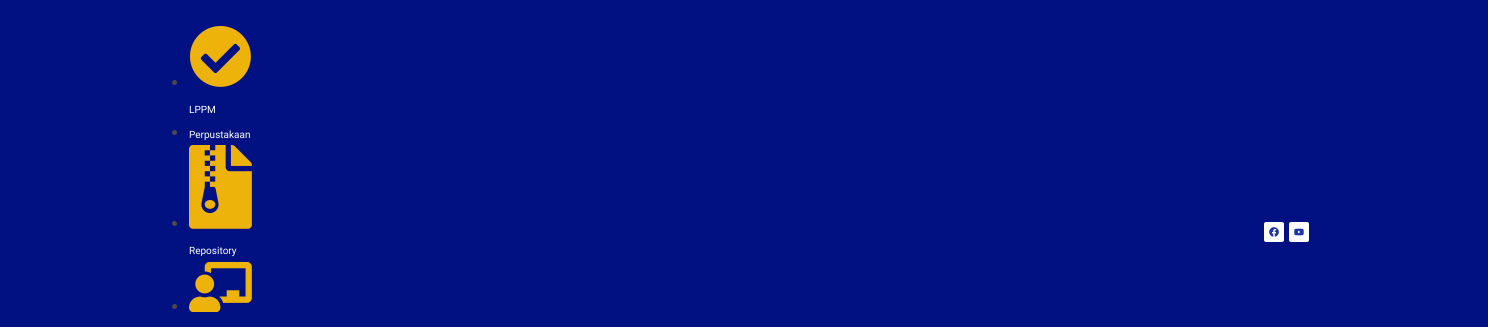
import math
import cairo

surface = cairo.ImageSurface(cairo.FORMAT_RGB24, 1488, 327)
ctx = cairo.Context(surface)
options = cairo.FontOptions()
options.set_hint_metrics(cairo.HINT_METRICS_OFF)
options.set_hint_style(cairo.HINT_STYLE_NONE)
ctx.set_font_options(options)
ctx.set_miter_limit(4)


def set_color(code):
    ctx.set_source_rgb(*(v / 255 for v in bytes.fromhex(code[-6:])))


def draw_text(x, y, s, family, size, color, bold=False, italic=False):
    ctx.select_font_face(family, cairo.FONT_SLANT_ITALIC if italic else cairo.FONT_SLANT_NORMAL, cairo.FONT_WEIGHT_BOLD if bold else cairo.FONT_WEIGHT_NORMAL)
    ctx.set_font_size(size)
    set_color(color)
    ctx.move_to(x, y)
    ctx.show_text(s)


def rounded_rect(x, y, w, h, r):
    ctx.new_sub_path()
    for i, (u, v) in enumerate([(x + w - r, y + h - r), (x + r, y + h - r), (x + r, y + r), (x + w - r, y + r)]):
        ctx.arc(u, v, r, i * math.pi / 2, (i + 1) * math.pi / 2)
    ctx.close_path()


def draw_image(path, x, y, w, h):
    ctx.save()
    ctx.set_source_surface(cairo.ImageSurface.create_from_png(path), x, y)
    ctx.rectangle(x, y, w, h)
    ctx.fill()
    ctx.restore()


set_color("#011181")
ctx.paint()
set_color("#4a4a4a")
ctx.arc(174.5, 82.5, 2.5, 0, 2 * math.pi)
ctx.fill()
draw_image("assets/img1.png", 190, 26, 61, 61)
draw_text(189, 113, "LPPM", "Roboto", 10, "#ffffff")
set_color("#4a4a4a")
ctx.new_path()
ctx.arc(174.5, 132.5, 2.5, 0, 2 * math.pi)
ctx.fill()
draw_text(189, 138, "Perpustakaan", "Roboto", 10, "#ffffff")
set_color("#4a4a4a")
ctx.new_path()
ctx.arc(174.5, 223.5, 2.5, 0, 2 * math.pi)
ctx.fill()
draw_image("assets/img2.png", 189, 145, 63, 84)
draw_text(189, 254, "Repository", "Roboto", 10, "#ffffff")
set_color("#4a4a4a")
ctx.new_path()
ctx.arc(174.5, 306.5, 2.5, 0, 2 * math.pi)
ctx.fill()
draw_image("assets/img3.png", 189, 262, 63, 50)
set_color("#ffffff")
rounded_rect(1264, 222, 20, 20, 2)
ctx.fill()
draw_image("assets/img4.png", 1269, 227, 10, 10)
rounded_rect(1289, 222, 20, 20, 2)
ctx.fill()
draw_image("assets/img5.png", 1294, 228, 10, 8)
surface.write_to_png("output.png")
